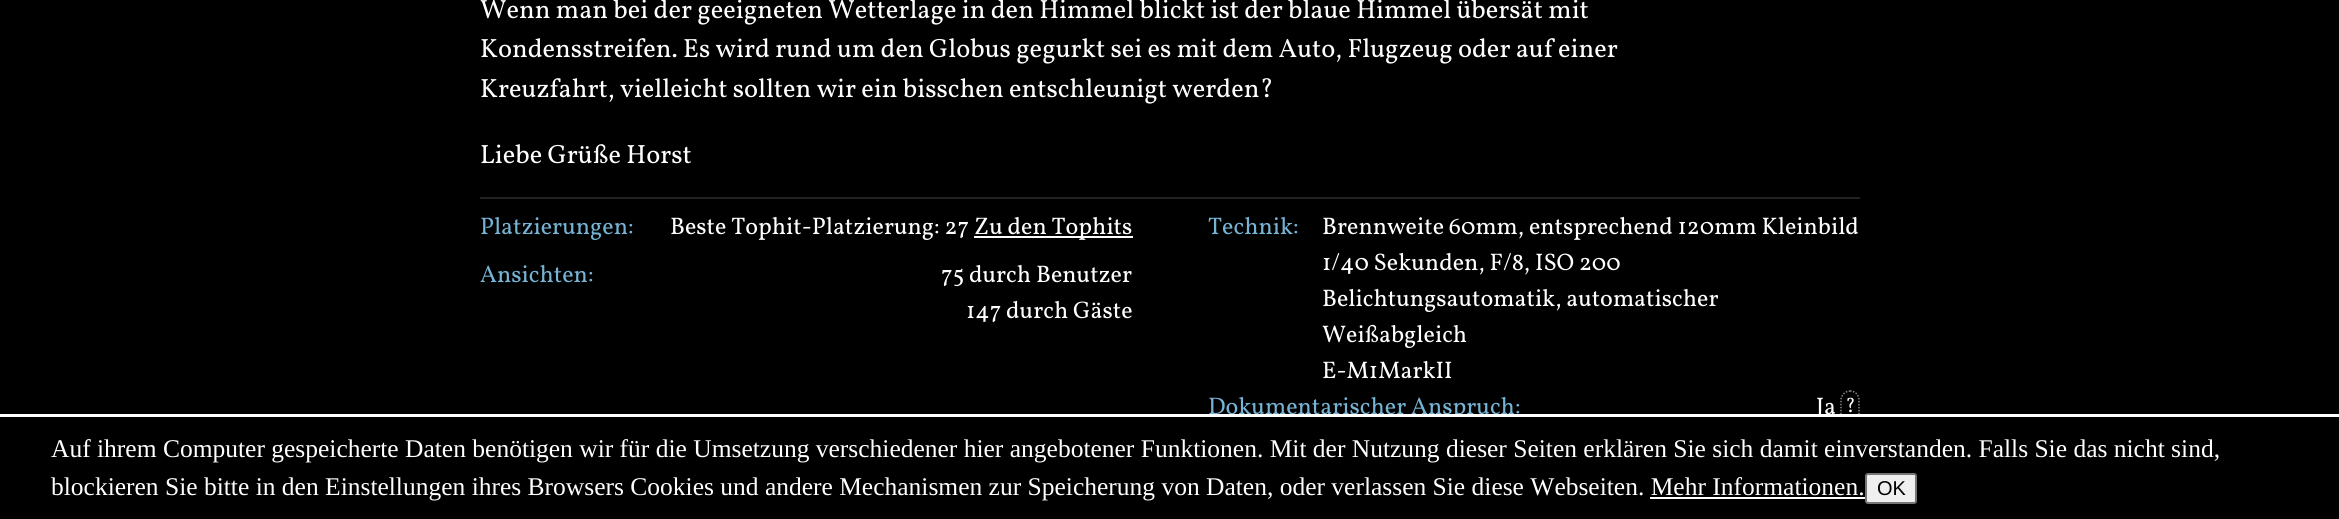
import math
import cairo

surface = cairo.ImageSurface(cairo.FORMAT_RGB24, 2339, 519)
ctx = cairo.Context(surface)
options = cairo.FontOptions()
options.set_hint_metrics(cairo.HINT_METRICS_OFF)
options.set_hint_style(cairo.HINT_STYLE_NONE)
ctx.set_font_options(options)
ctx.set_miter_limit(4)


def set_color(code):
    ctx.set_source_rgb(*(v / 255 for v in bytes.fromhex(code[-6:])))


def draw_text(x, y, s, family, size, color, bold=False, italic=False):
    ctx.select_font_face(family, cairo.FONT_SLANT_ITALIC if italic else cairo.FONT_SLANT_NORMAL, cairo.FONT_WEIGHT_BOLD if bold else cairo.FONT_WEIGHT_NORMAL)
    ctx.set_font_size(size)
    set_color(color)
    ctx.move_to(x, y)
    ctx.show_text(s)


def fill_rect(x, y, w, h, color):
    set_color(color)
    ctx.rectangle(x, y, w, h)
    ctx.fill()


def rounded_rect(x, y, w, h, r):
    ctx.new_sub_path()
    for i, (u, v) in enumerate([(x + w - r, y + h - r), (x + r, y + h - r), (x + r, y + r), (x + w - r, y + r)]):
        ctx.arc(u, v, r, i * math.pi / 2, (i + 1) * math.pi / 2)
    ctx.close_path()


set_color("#000000")
ctx.paint()
fill_rect(480, 197, 1380, 2, "#222222")
draw_text(480, 18, "Wenn man bei der geeigneten Wetterlage in den Himmel blickt ist der blaue Himmel übersät mit", "Vollkorn", 26.4, "#ffffff")
draw_text(480, 57, "Kondensstreifen. Es wird rund um den Globus gegurkt sei es mit dem Auto, Flugzeug oder auf einer", "Vollkorn", 26.4, "#ffffff")
draw_text(480, 97, "Kreuzfahrt, vielleicht sollten wir ein bisschen entschleunigt werden?", "Vollkorn", 26.4, "#ffffff")
draw_text(480, 163, "Liebe Grüße Horst", "Vollkorn", 26.4, "#ffffff")
draw_text(480, 234, "Platzierungen:", "Vollkorn", 24, "#76b3d4")
draw_text(670, 234, "Beste Tophit-Platzierung: 27", "Vollkorn", 24, "#ffffff")
fill_rect(974, 236, 159, 2, "#ffffff")
draw_text(974, 234, "Zu den Tophits", "Vollkorn", 24, "#ffffff")
draw_text(480, 282, "Ansichten:", "Vollkorn", 24, "#76b3d4")
draw_text(941, 282, "75 durch Benutzer", "Vollkorn", 24, "#ffffff")
draw_text(966, 318, "147 durch Gäste", "Vollkorn", 24, "#ffffff")
draw_text(1208, 234, "Technik:", "Vollkorn", 24, "#76b3d4")
draw_text(1322, 234, "Brennweite 60mm, entsprechend 120mm Kleinbild", "Vollkorn", 24, "#ffffff")
draw_text(1322, 270, "1/40 Sekunden, F/8, ISO 200", "Vollkorn", 24, "#ffffff")
draw_text(1322, 306, "Belichtungsautomatik, automatischer", "Vollkorn", 24, "#ffffff")
draw_text(1322, 342, "Weißabgleich", "Vollkorn", 24, "#ffffff")
draw_text(1322, 378, "E-M1MarkII", "Vollkorn", 24, "#ffffff")
draw_text(1208, 414, "Dokumentarischer Anspruch:", "Vollkorn", 24, "#76b3d4")
draw_text(1816, 414, "Ja", "Vollkorn", 24, "#ffffff")
ctx.new_path()
ctx.move_to(1850, 391)
ctx.curve_to(1855, 391, 1859, 395, 1859, 400)
ctx.line_to(1859, 416)
ctx.curve_to(1859, 421, 1855, 425, 1850, 425)
ctx.curve_to(1845.5, 425, 1841, 421, 1841, 416)
ctx.line_to(1841, 400)
ctx.curve_to(1841, 395, 1845.5, 391, 1850, 391)
ctx.close_path()
set_color("#888888")
ctx.set_line_width(1.5)
ctx.set_dash([1.5, 1.5])
ctx.stroke()
draw_text(1845, 412, "?", "Vollkorn", 20, "#ffffff")
fill_rect(1452, 417, 408, 9, "#000000")
fill_rect(0, 414, 2339, 3, "#ffffff")
draw_text(51, 457, "Auf ihrem Computer gespeicherte Daten benötigen wir für die Umsetzung verschiedener hier angebotener Funktionen. Mit der Nutzung dieser Seiten erklären Sie sich damit einverstanden. Falls Sie das nicht sind,", "Liberation Serif", 25.5, "#ffffff")
draw_text(51, 495, "blockieren Sie bitte in den Einstellungen ihres Browsers Cookies und andere Mechanismen zur Speicherung von Daten, oder verlassen Sie diese Webseiten. Mehr Informationen.", "Liberation Serif", 25.5, "#ffffff")
set_color("#efefef")
rounded_rect(1866, 474, 50, 29, 2)
ctx.fill_preserve()
set_color("#767676")
ctx.set_line_width(2)
ctx.set_dash([])
ctx.stroke()
draw_text(1877, 495, "OK", "Liberation Sans", 20, "#000000")
fill_rect(1650, 497, 215, 2, "#ffffff")
surface.write_to_png("output.png")
